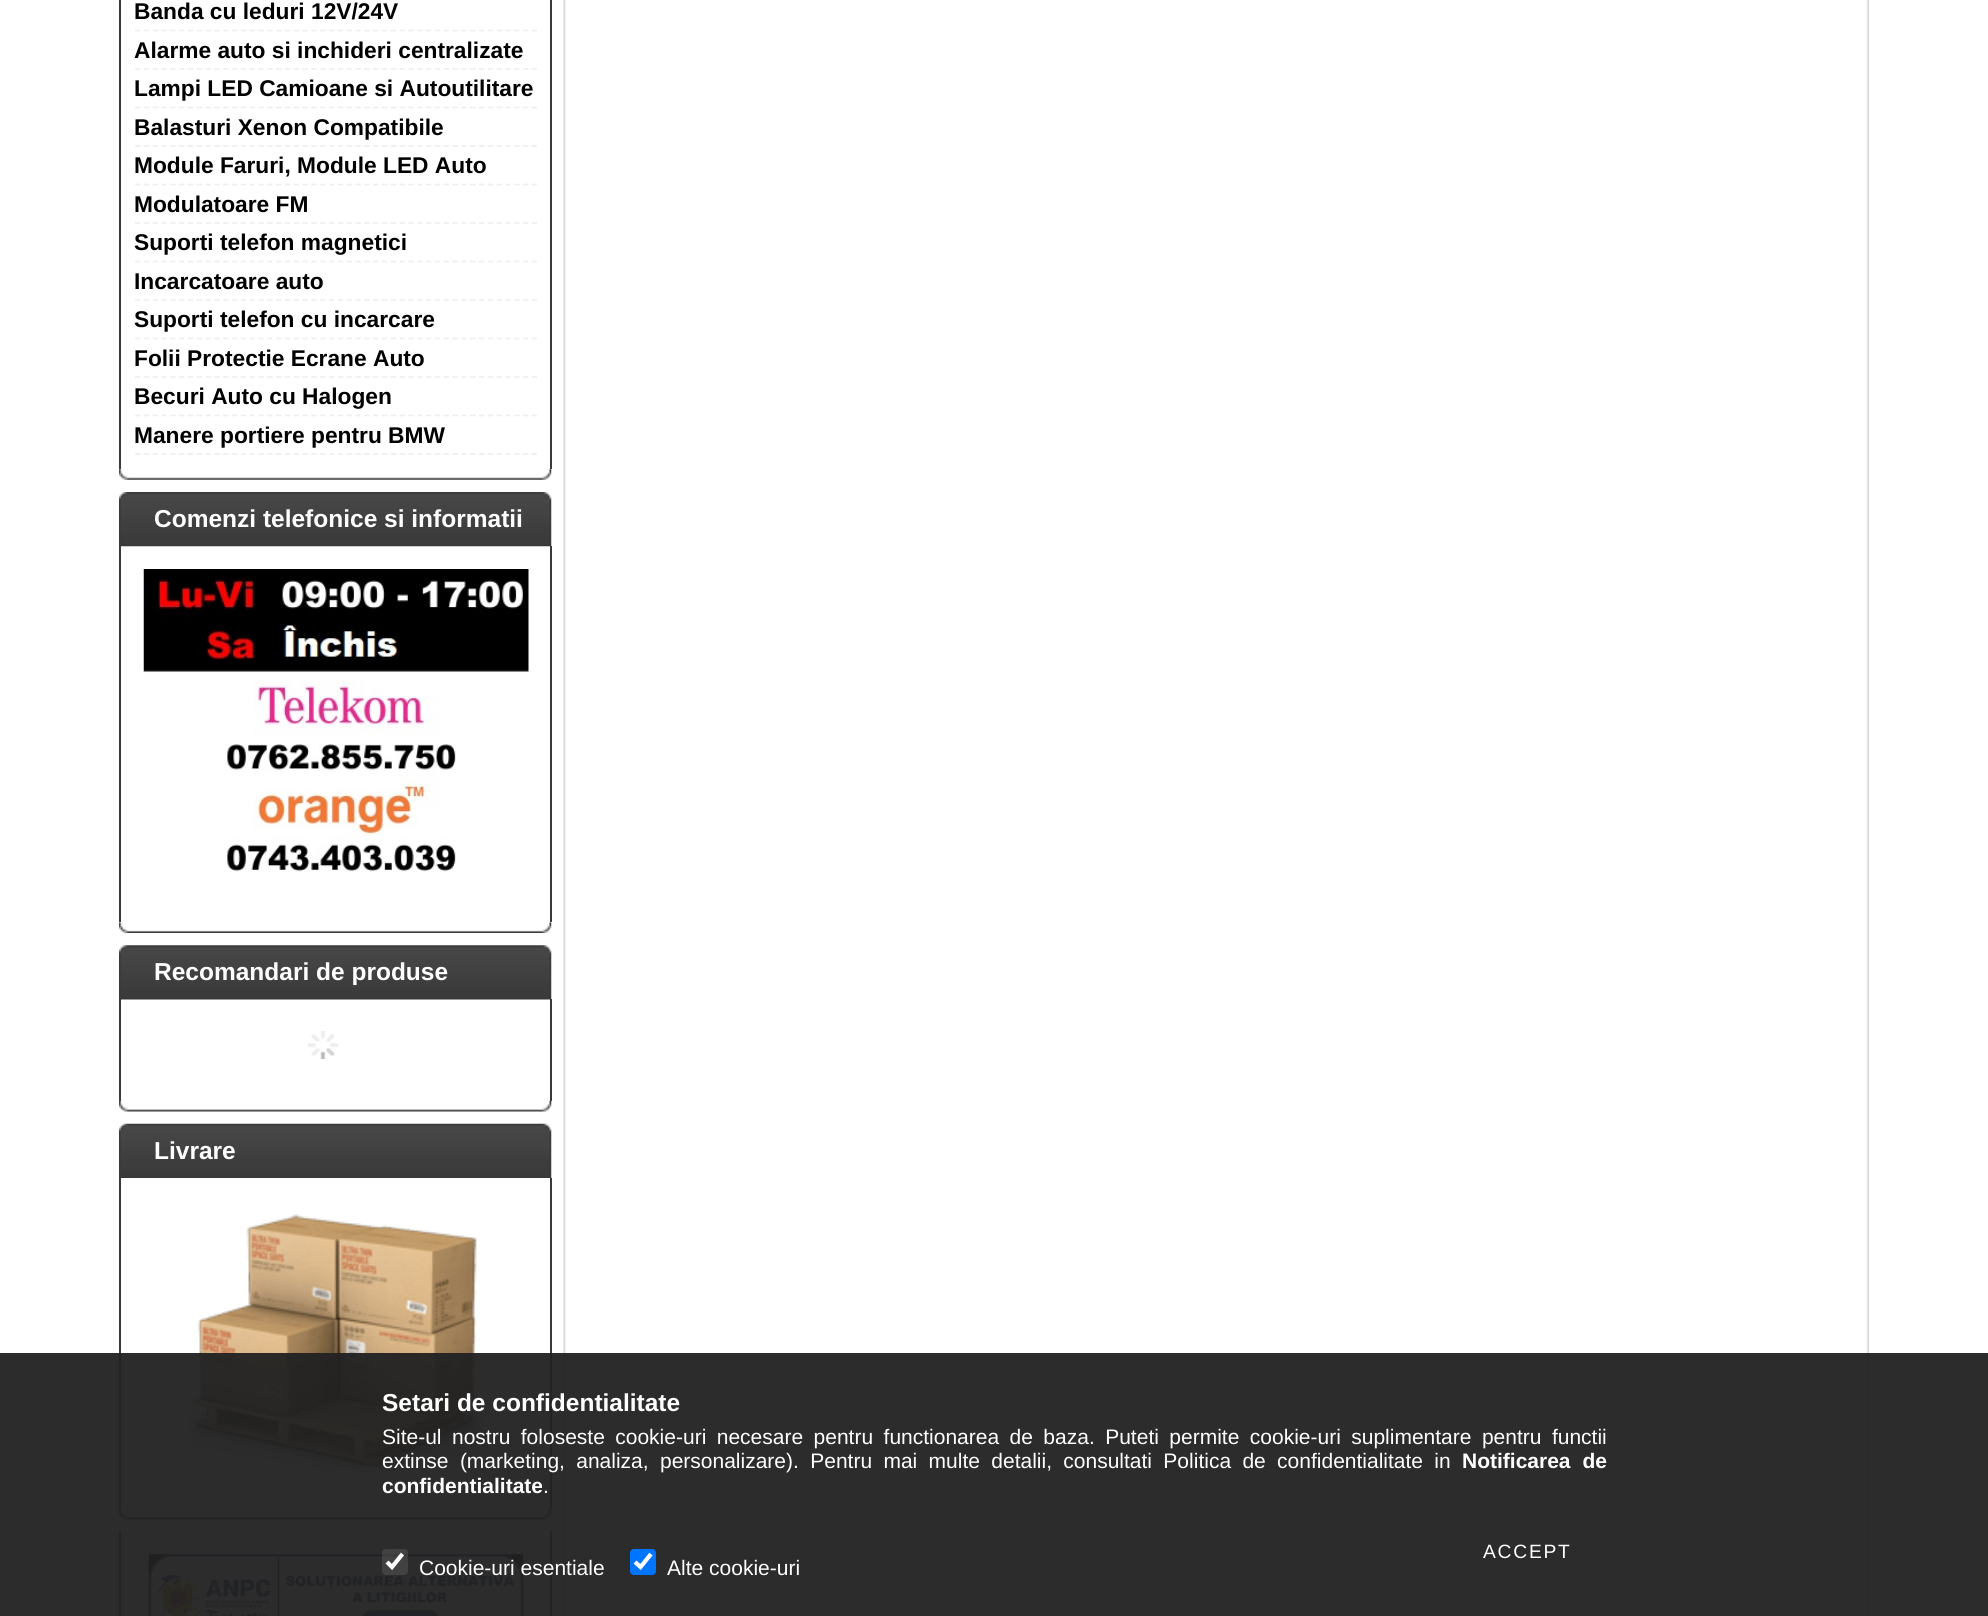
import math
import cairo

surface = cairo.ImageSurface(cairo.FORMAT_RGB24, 1988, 1616)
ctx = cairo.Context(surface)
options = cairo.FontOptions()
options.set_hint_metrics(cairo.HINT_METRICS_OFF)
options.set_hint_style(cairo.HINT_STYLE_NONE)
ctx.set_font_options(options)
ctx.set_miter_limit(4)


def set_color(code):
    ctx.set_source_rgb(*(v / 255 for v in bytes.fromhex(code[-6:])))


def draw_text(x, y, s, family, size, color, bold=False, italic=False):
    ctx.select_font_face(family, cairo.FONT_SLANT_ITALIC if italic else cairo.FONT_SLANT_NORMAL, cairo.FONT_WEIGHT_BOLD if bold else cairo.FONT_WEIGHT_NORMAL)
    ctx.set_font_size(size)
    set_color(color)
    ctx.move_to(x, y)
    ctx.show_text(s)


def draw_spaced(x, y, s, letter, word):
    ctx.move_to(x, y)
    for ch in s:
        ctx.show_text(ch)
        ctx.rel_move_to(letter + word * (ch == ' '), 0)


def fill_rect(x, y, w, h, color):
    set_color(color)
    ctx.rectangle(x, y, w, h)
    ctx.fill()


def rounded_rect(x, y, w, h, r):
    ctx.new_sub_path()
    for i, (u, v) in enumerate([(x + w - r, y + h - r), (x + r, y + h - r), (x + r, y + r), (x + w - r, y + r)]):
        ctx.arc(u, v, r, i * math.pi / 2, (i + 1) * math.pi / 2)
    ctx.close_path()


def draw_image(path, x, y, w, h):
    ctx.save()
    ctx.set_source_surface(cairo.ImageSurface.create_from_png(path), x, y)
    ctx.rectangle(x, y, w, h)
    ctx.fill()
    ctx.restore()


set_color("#ffffff")
ctx.paint()
draw_image("assets/img1.png", 563, 0, 1306, 1616)
fill_rect(550, 0, 2, 469, "#3a3a3a")
fill_rect(119, 0, 2, 469, "#3a3a3a")
ctx.new_path()
ctx.move_to(135, 30.5)
ctx.line_to(537, 30.5)
set_color("#efefef")
ctx.set_line_width(1.8)
ctx.set_dash([5.25, 3.57])
ctx.stroke()
draw_text(134, 19, "Banda cu leduri 12V/24V", "Liberation Sans", 22.75, "#000000", bold=True)
ctx.new_path()
ctx.move_to(135, 69)
ctx.line_to(537, 69)
set_color("#efefef")
ctx.stroke()
draw_text(134, 58, "Alarme auto si inchideri centralizate", "Liberation Sans", 22.75, "#000000", bold=True)
ctx.new_path()
ctx.move_to(135, 107.5)
ctx.line_to(537, 107.5)
set_color("#efefef")
ctx.stroke()
draw_text(134, 96, "Lampi LED Camioane si Autoutilitare", "Liberation Sans", 22.75, "#000000", bold=True)
ctx.new_path()
ctx.move_to(135, 146)
ctx.line_to(537, 146)
set_color("#efefef")
ctx.stroke()
draw_text(134, 135, "Balasturi Xenon Compatibile", "Liberation Sans", 22.75, "#000000", bold=True)
ctx.new_path()
ctx.move_to(135, 184.5)
ctx.line_to(537, 184.5)
set_color("#efefef")
ctx.stroke()
draw_text(134, 173, "Module Faruri, Module LED Auto", "Liberation Sans", 22.75, "#000000", bold=True)
ctx.new_path()
ctx.move_to(135, 223)
ctx.line_to(537, 223)
set_color("#efefef")
ctx.stroke()
draw_text(134, 212, "Modulatoare FM", "Liberation Sans", 22.75, "#000000", bold=True)
ctx.new_path()
ctx.move_to(135, 261.5)
ctx.line_to(537, 261.5)
set_color("#efefef")
ctx.stroke()
draw_text(134, 250, "Suporti telefon magnetici", "Liberation Sans", 22.75, "#000000", bold=True)
ctx.new_path()
ctx.move_to(135, 300)
ctx.line_to(537, 300)
set_color("#efefef")
ctx.stroke()
draw_text(134, 289, "Incarcatoare auto", "Liberation Sans", 22.75, "#000000", bold=True)
ctx.new_path()
ctx.move_to(135, 338.5)
ctx.line_to(537, 338.5)
set_color("#efefef")
ctx.stroke()
draw_text(134, 327, "Suporti telefon cu incarcare", "Liberation Sans", 22.75, "#000000", bold=True)
ctx.new_path()
ctx.move_to(135, 377)
ctx.line_to(537, 377)
set_color("#efefef")
ctx.stroke()
draw_text(134, 366, "Folii Protectie Ecrane Auto", "Liberation Sans", 22.75, "#000000", bold=True)
ctx.new_path()
ctx.move_to(135, 415.5)
ctx.line_to(537, 415.5)
set_color("#efefef")
ctx.stroke()
draw_text(134, 404, "Becuri Auto cu Halogen", "Liberation Sans", 22.75, "#000000", bold=True)
ctx.new_path()
ctx.move_to(135, 454)
ctx.line_to(537, 454)
set_color("#efefef")
ctx.stroke()
draw_text(134, 443, "Manere portiere pentru BMW", "Liberation Sans", 22.75, "#000000", bold=True)
draw_image("assets/img2.png", 119, 469, 433, 11)
draw_image("assets/img3.png", 119, 492, 433, 55)
draw_text(154, 527, "Comenzi telefonice si informatii", "Liberation Sans", 24.5, "#ffffff", bold=True)
fill_rect(550, 546, 2, 376, "#3a3a3a")
fill_rect(119, 546, 2, 376, "#3a3a3a")
draw_image("assets/img4.png", 143, 569, 386, 303)
draw_image("assets/img5.png", 119, 922, 433, 11)
draw_image("assets/img6.png", 119, 945, 433, 55)
draw_text(154, 980, "Recomandari de produse", "Liberation Sans", 24.5, "#ffffff", bold=True)
fill_rect(550, 999, 2, 102, "#3a3a3a")
fill_rect(119, 999, 2, 102, "#3a3a3a")
draw_image("assets/img7.png", 308, 1031, 30, 28)
draw_image("assets/img8.png", 119, 1101, 433, 11)
draw_image("assets/img9.png", 119, 1123, 433, 55)
draw_text(154, 1159, "Livrare", "Liberation Sans", 24.5, "#ffffff", bold=True)
draw_image("assets/img11.png", 119, 1508, 433, 12)
fill_rect(550, 1178, 2, 331, "#3a3a3a")
fill_rect(119, 1178, 2, 331, "#3a3a3a")
draw_image("assets/img10.png", 188, 1214, 296, 262)
fill_rect(550, 1531, 2, 85, "#3a3a3a")
fill_rect(119, 1531, 2, 85, "#3a3a3a")
draw_image("assets/img12.png", 148, 1554, 376, 62)
ctx.set_source_rgba(0.133, 0.133, 0.133, 0.95)
ctx.rectangle(0, 1353, 1988, 263)
ctx.fill()
draw_text(382, 1411, "Setari de confidentialitate", "Liberation Sans", 24.5, "#ffffff", bold=True)
ctx.select_font_face("Liberation Sans")
ctx.set_font_size(21)
draw_spaced(382, 1444, "Site-ul nostru foloseste cookie-uri necesare pentru functionarea de baza. Puteti permite cookie-uri suplimentare pentru functii", 0, 4.6)
draw_spaced(382, 1468, "extinse (marketing, analiza, personalizare). Pentru mai multe detalii, consultati Politica de confidentialitate in", 0, 5.5)
ctx.select_font_face("Liberation Sans", cairo.FONT_SLANT_NORMAL, cairo.FONT_WEIGHT_BOLD)
draw_spaced(1462, 1468, "Notificarea de", 0, 6)
draw_text(382, 1493, "confidentialitate", "Liberation Sans", 21, "#ffffff", bold=True)
draw_text(543, 1493, ".", "Liberation Sans", 21, "#ffffff")
ctx.set_font_size(19.25)
draw_spaced(1483, 1558, "ACCEPT", 1.75, 0)
ctx.set_source_rgba(0.463, 0.463, 0.463, 0.3)
rounded_rect(382, 1549, 26, 26, 4)
ctx.fill()
ctx.new_path()
ctx.move_to(387, 1562)
ctx.line_to(392, 1567)
ctx.line_to(402.5, 1554)
set_color("#ffffff")
ctx.set_line_width(4.2)
ctx.set_dash([])
ctx.stroke()
draw_text(419, 1575, "Cookie-uri esentiale", "Liberation Sans", 21, "#ffffff")
set_color("#0075ff")
rounded_rect(630, 1549, 26, 26, 4)
ctx.fill()
ctx.new_path()
ctx.move_to(635, 1562)
ctx.line_to(640.5, 1567)
ctx.line_to(651, 1554)
set_color("#ffffff")
ctx.stroke()
draw_text(667, 1575, "Alte cookie-uri", "Liberation Sans", 21, "#ffffff")
surface.write_to_png("output.png")
